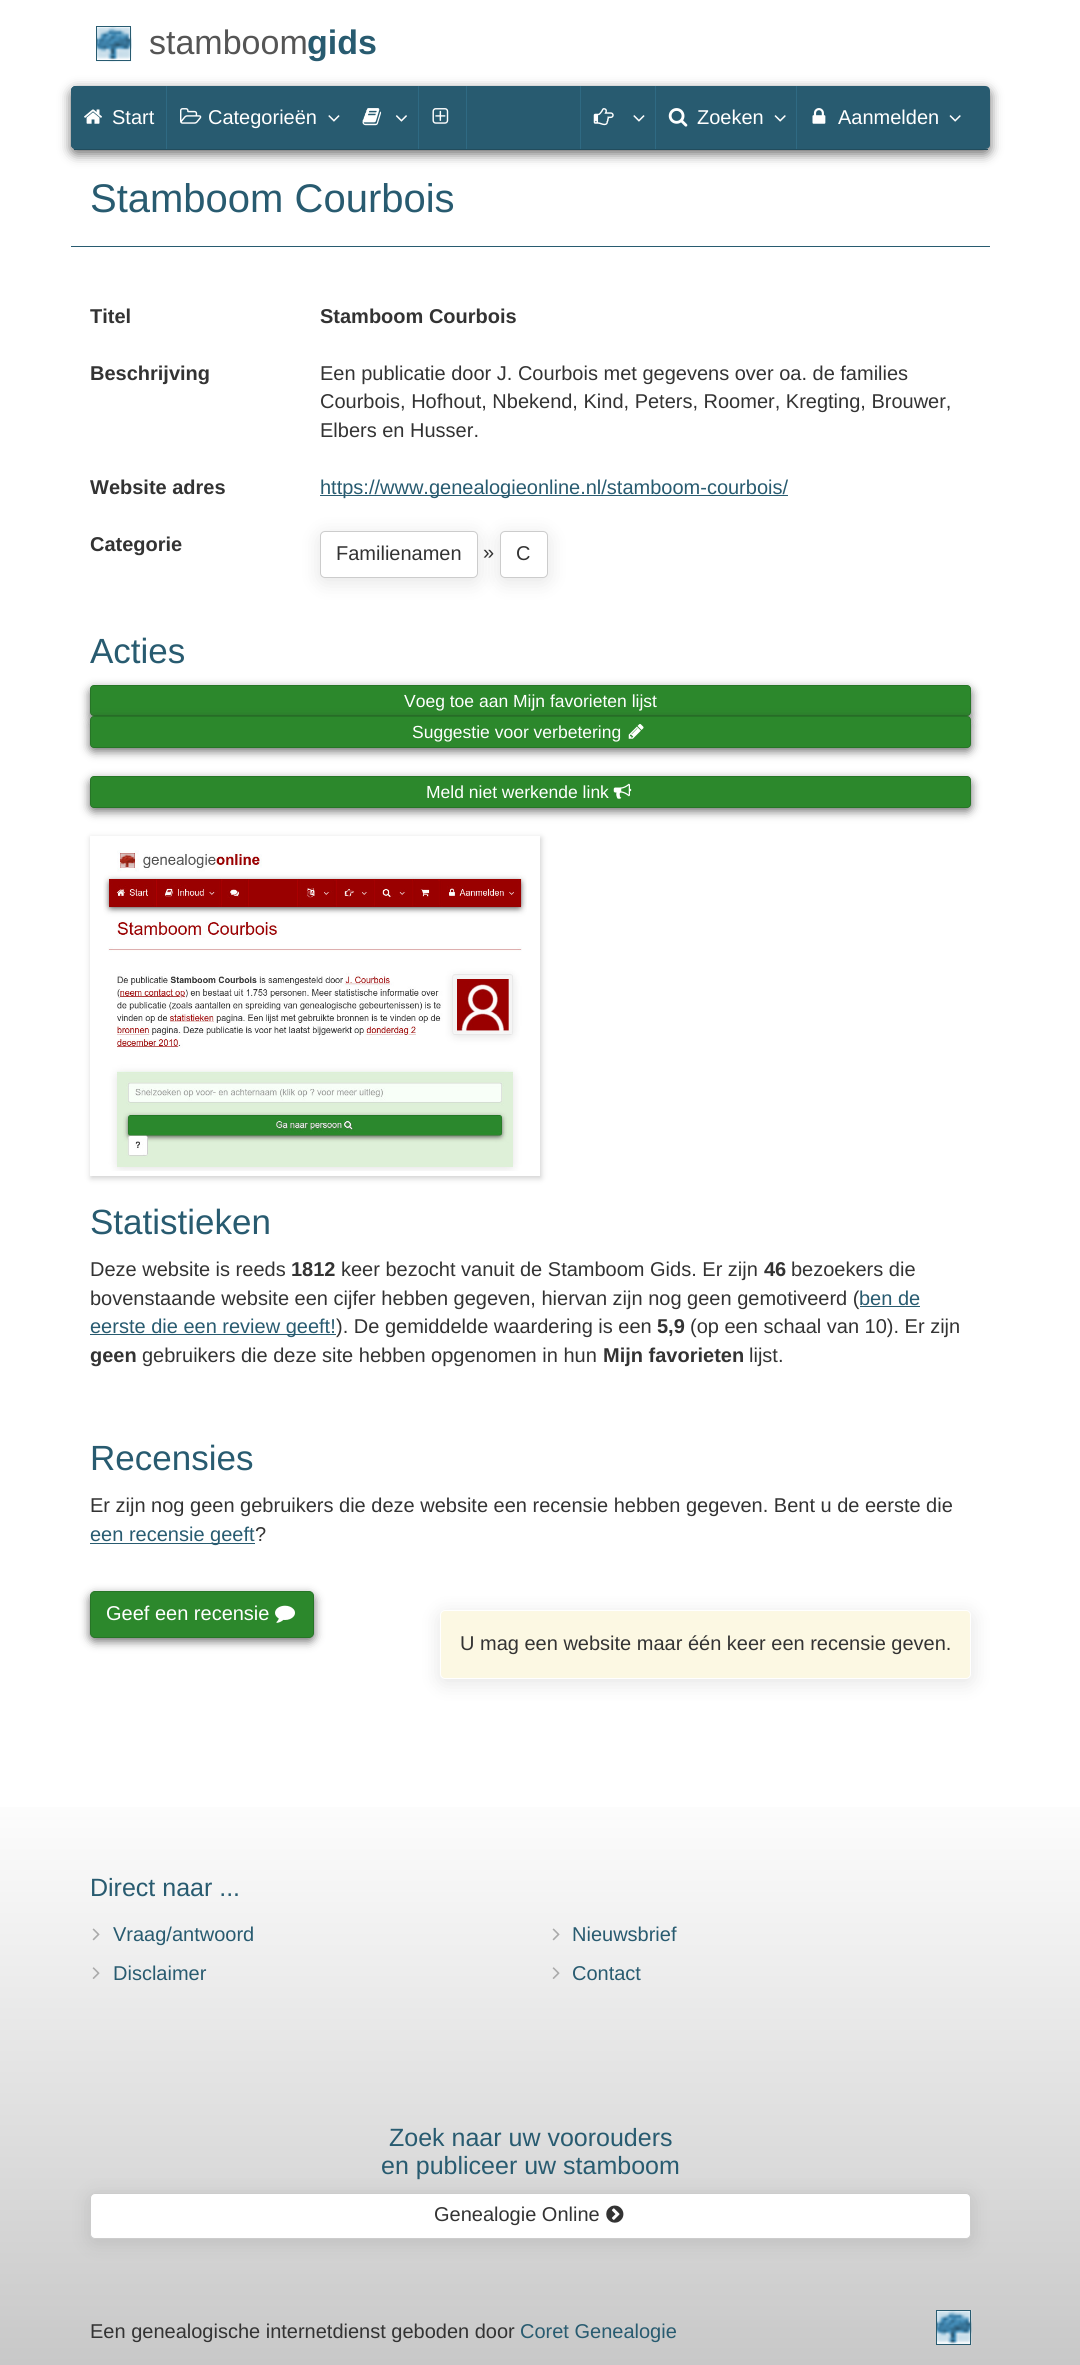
import math
import cairo

surface = cairo.ImageSurface(cairo.FORMAT_RGB24, 1080, 2365)
ctx = cairo.Context(surface)
options = cairo.FontOptions()
options.set_hint_metrics(cairo.HINT_METRICS_OFF)
options.set_hint_style(cairo.HINT_STYLE_NONE)
ctx.set_font_options(options)
ctx.set_miter_limit(4)


def set_color(code):
    ctx.set_source_rgb(*(v / 255 for v in bytes.fromhex(code[-6:])))


def draw_text(x, y, s, family, size, color, bold=False, italic=False):
    ctx.select_font_face(family, cairo.FONT_SLANT_ITALIC if italic else cairo.FONT_SLANT_NORMAL, cairo.FONT_WEIGHT_BOLD if bold else cairo.FONT_WEIGHT_NORMAL)
    ctx.set_font_size(size)
    set_color(color)
    ctx.move_to(x, y)
    ctx.show_text(s)


def fill_rect(x, y, w, h, color):
    set_color(color)
    ctx.rectangle(x, y, w, h)
    ctx.fill()


def rounded_rect(x, y, w, h, r):
    ctx.new_sub_path()
    for i, (u, v) in enumerate([(x + w - r, y + h - r), (x + r, y + h - r), (x + r, y + r), (x + w - r, y + r)]):
        ctx.arc(u, v, r, i * math.pi / 2, (i + 1) * math.pi / 2)
    ctx.close_path()


def draw_shadow(x, y, w, h, r, blur, alpha):
    ctx.push_group_with_content(cairo.CONTENT_ALPHA)
    ctx.set_operator(cairo.OPERATOR_SOURCE)
    for i in range(15, -16, -2):
        e = blur * i / 6
        if min(w, h) + 2 * e > 0:
            ctx.set_source_rgba(0, 0, 0, alpha * math.erfc((i - 1) / 8.5) / 2)
            rounded_rect(x - e, y - e, w + 2 * e, h + 2 * e, max(0, min(r + e + blur * .6, min(w, h) / 2 + e)))
            ctx.fill()
    ctx.mask(ctx.pop_group())


def draw_image(path, x, y, w, h):
    ctx.save()
    ctx.set_source_surface(cairo.ImageSurface.create_from_png(path), x, y)
    ctx.rectangle(x, y, w, h)
    ctx.fill()
    ctx.restore()


set_color("#ffffff")
ctx.paint()
draw_image("assets/img1.png", 96, 26, 36, 36)
ctx.rectangle(96.5, 26.5, 34, 34)
set_color("#285b70")
ctx.set_line_width(1)
ctx.stroke()
draw_text(149, 54, "stamboom", "Liberation Sans", 34, "#555555")
draw_text(307, 54, "gids", "Liberation Sans", 34, "#285b70", bold=True)
set_color("#323232")
draw_shadow(71, 90, 919, 64, 5, 6, 0.73)
set_color("#285b70")
ctx.new_path()
ctx.move_to(76, 86)
ctx.line_to(985, 86)
ctx.curve_to(988, 86, 990, 88, 990, 91)
ctx.line_to(990, 145)
ctx.curve_to(990, 147, 988, 149, 985, 149)
ctx.line_to(76, 149)
ctx.curve_to(73, 149, 71, 147, 71, 145)
ctx.line_to(71, 91)
ctx.curve_to(71, 88, 73, 86, 76, 86)
ctx.close_path()
ctx.fill()
fill_rect(74, 149, 914, 1, "#214c5d")
set_color("#285b70")
rounded_rect(71, 86, 900, 63, 5)
ctx.fill()
rounded_rect(71, 86, 95, 63, 5)
ctx.fill()
draw_image("assets/img2.png", 84, 109, 18, 15)
draw_text(112, 124, "Start", "Liberation Sans", 20, "#ffffff")
fill_rect(166, 86, 1, 63, "#2f6a83")
draw_image("assets/img3.png", 180, 108, 22, 16)
draw_text(208, 124, "Categorieën", "Liberation Sans", 20, "#ffffff")
draw_image("assets/img4.png", 328, 115, 12, 7)
draw_image("assets/img5.png", 362, 108, 20, 18)
draw_image("assets/img6.png", 395, 115, 12, 7)
fill_rect(418, 86, 1, 63, "#2f6a83")
draw_image("assets/img7.png", 432, 108, 17, 16)
fill_rect(466, 86, 1, 63, "#2f6a83")
fill_rect(580, 86, 1, 63, "#2f6a83")
draw_image("assets/img8.png", 593, 108, 21, 18)
draw_image("assets/img4.png", 633, 115, 12, 7)
fill_rect(655, 86, 1, 63, "#2f6a83")
draw_image("assets/img9.png", 668, 108, 20, 19)
draw_text(697, 124, "Zoeken", "Liberation Sans", 20, "#ffffff")
draw_image("assets/img10.png", 774, 115, 12, 7)
fill_rect(796, 86, 1, 63, "#2f6a83")
draw_image("assets/img11.png", 812, 108, 14, 16)
draw_text(838, 124, "Aanmelden", "Liberation Sans", 20, "#ffffff")
draw_image("assets/img10.png", 949, 115, 12, 7)
fill_rect(71, 246, 919, 1, "#285b70")
draw_text(90, 212, "Stamboom Courbois", "Liberation Sans", 40, "#285b70")
draw_text(90, 323, "Titel", "Liberation Sans", 20, "#333333", bold=True)
draw_text(320, 323, "Stamboom Courbois", "Liberation Sans", 20, "#333333", bold=True)
draw_text(90, 380, "Beschrijving", "Liberation Sans", 20, "#333333", bold=True)
draw_text(320, 380, "Een publicatie door J. Courbois met gegevens over oa. de families", "Liberation Sans", 20, "#333333")
draw_text(320, 408, "Courbois, Hofhout, Nbekend, Kind, Peters, Roomer, Kregting, Brouwer,", "Liberation Sans", 20, "#333333")
draw_text(320, 437, "Elbers en Husser.", "Liberation Sans", 20, "#333333")
draw_text(90, 494, "Website adres", "Liberation Sans", 20, "#333333", bold=True)
fill_rect(320, 495, 468, 1, "#285b70")
draw_text(320, 494, "https://www.genealogieonline.nl/stamboom-courbois/", "Liberation Sans", 20, "#285b70")
draw_text(90, 551, "Categorie", "Liberation Sans", 20, "#333333", bold=True)
set_color("#000000")
draw_shadow(319, 534, 160, 49, 6, 9.5, 0.1)
set_color("#ffffff")
rounded_rect(320.5, 531.5, 157, 46, 4.5)
ctx.fill_preserve()
set_color("#cccccc")
ctx.stroke()
draw_text(336, 560, "Familienamen", "Liberation Sans", 20, "#333333")
draw_text(483, 559, "»", "Liberation Sans", 20, "#333333")
set_color("#000000")
draw_shadow(499, 534, 50, 49, 6, 9.5, 0.1)
set_color("#ffffff")
rounded_rect(500.5, 531.5, 47, 46, 4.5)
ctx.fill_preserve()
set_color("#cccccc")
ctx.stroke()
draw_text(516, 560, "C", "Liberation Sans", 20, "#333333")
draw_text(90, 663, "Acties", "Liberation Sans", 35, "#285b70")
set_color("#323232")
draw_shadow(90, 689, 881, 31, 4, 5, 0.73)
set_color("#2c882c")
rounded_rect(90.5, 685.5, 880, 30, 3.5)
ctx.fill_preserve()
set_color("#267526")
ctx.stroke()
draw_text(404, 707, "Voeg toe aan Mijn favorieten lijst", "Liberation Sans", 17.5, "#ffffff")
set_color("#323232")
draw_shadow(90, 720, 881, 31, 4, 5, 0.73)
set_color("#2c882c")
rounded_rect(90.5, 716.5, 880, 31, 3.5)
ctx.fill_preserve()
set_color("#267526")
ctx.stroke()
draw_text(412, 738, "Suggestie voor verbetering", "Liberation Sans", 17.5, "#ffffff")
draw_image("assets/img12.png", 628, 724, 16, 15)
set_color("#323232")
draw_shadow(90, 780, 881, 31, 4, 5, 0.73)
set_color("#2c882c")
rounded_rect(90.5, 776.5, 880, 31, 3.5)
ctx.fill_preserve()
set_color("#267526")
ctx.stroke()
draw_text(426, 798, "Meld niet werkende link", "Liberation Sans", 17.5, "#ffffff")
draw_image("assets/img13.png", 613, 783, 19, 16)
set_color("#cccccc")
draw_shadow(91, 838, 450, 340, 0, 3, 1)
fill_rect(90, 836, 450, 340, "#ffffff")
draw_image("assets/img14.png", 103, 850, 424, 321)
draw_text(90, 1234, "Statistieken", "Liberation Sans", 35, "#285b70")
draw_text(90, 1276, "Deze website is reeds", "Liberation Sans", 20, "#333333")
draw_text(291, 1276, "1812", "Liberation Sans", 20, "#333333", bold=True)
draw_text(341, 1276, "keer bezocht vanuit de Stamboom Gids. Er zijn", "Liberation Sans", 20, "#333333")
draw_text(764, 1276, "46", "Liberation Sans", 20, "#333333", bold=True)
draw_text(791, 1276, "bezoekers die", "Liberation Sans", 20, "#333333")
draw_text(90, 1305, "bovenstaande website een cijfer hebben gegeven, hiervan zijn nog geen gemotiveerd (", "Liberation Sans", 20, "#333333")
draw_text(859, 1305, "ben de", "Liberation Sans", 20, "#285b70")
fill_rect(860, 1306, 60, 1, "#285b70")
fill_rect(90, 1334, 246, 1, "#285b70")
draw_text(90, 1333, "eerste die een review geeft!", "Liberation Sans", 20, "#285b70")
draw_text(336, 1333, "). De gemiddelde waardering is een", "Liberation Sans", 20, "#333333")
draw_text(657, 1333, "5,9", "Liberation Sans", 20, "#333333", bold=True)
draw_text(690, 1333, "(op een schaal van 10). Er zijn", "Liberation Sans", 20, "#333333")
draw_text(90, 1362, "geen", "Liberation Sans", 20, "#333333", bold=True)
draw_text(142, 1362, "gebruikers die deze site hebben opgenomen in hun", "Liberation Sans", 20, "#333333")
draw_text(603, 1362, "Mijn favorieten", "Liberation Sans", 20, "#333333", bold=True)
draw_text(749, 1362, "lijst.", "Liberation Sans", 20, "#333333")
draw_text(90, 1470, "Recensies", "Liberation Sans", 35, "#285b70")
draw_text(90, 1512, "Er zijn nog geen gebruikers die deze website een recensie hebben gegeven. Bent u de eerste die", "Liberation Sans", 20, "#333333")
fill_rect(90, 1543, 165, 1, "#285b70")
draw_text(90, 1541, "een recensie geeft", "Liberation Sans", 20, "#285b70")
draw_text(255, 1541, "?", "Liberation Sans", 20, "#333333")
set_color("#323232")
draw_shadow(90, 1595, 224, 46, 5, 5, 0.73)
set_color("#2c882c")
rounded_rect(90.5, 1591.5, 223, 46, 4.5)
ctx.fill_preserve()
set_color("#267526")
ctx.stroke()
draw_text(106, 1620, "Geef een recensie", "Liberation Sans", 20, "#ffffff")
draw_image("assets/img15.png", 275, 1605, 20, 18)
set_color("#000000")
draw_shadow(439, 1613, 534, 71, 6, 9.5, 0.1)
set_color("#fcf8e3")
rounded_rect(440.5, 1610.5, 530, 68, 4.5)
ctx.fill_preserve()
set_color("#ffffff")
ctx.stroke()
draw_text(460, 1650, "U mag een website maar één keer een recensie geven.", "Liberation Sans", 20, "#333333")
gradient = cairo.LinearGradient(540, 2365, 540, 1780)
gradient.add_color_stop_rgba(0, 0.784, 0.784, 0.784, 1)
gradient.add_color_stop_rgba(1, 1, 1, 1, 1)
ctx.set_source(gradient)
ctx.rectangle(0, 1807, 1080, 558)
ctx.fill()
draw_text(90, 1896, "Direct naar ...", "Liberation Sans", 25, "#285b70")
draw_image("assets/img16.png", 92, 1928, 8, 13)
draw_text(113, 1941, "Vraag/antwoord", "Liberation Sans", 20, "#285b70")
draw_image("assets/img17.png", 92, 1967, 8, 12)
draw_text(113, 1980, "Disclaimer", "Liberation Sans", 20, "#285b70")
draw_image("assets/img16.png", 552, 1928, 8, 13)
draw_text(572, 1941, "Nieuwsbrief", "Liberation Sans", 20, "#285b70")
draw_image("assets/img17.png", 552, 1967, 8, 12)
draw_text(572, 1980, "Contact", "Liberation Sans", 20, "#285b70")
draw_text(389, 2146, "Zoek naar uw voorouders", "Liberation Sans", 25, "#285b70")
set_color("#000000")
draw_shadow(89, 2195, 884, 49, 6, 9.5, 0.1)
draw_text(381, 2174, "en publiceer uw stamboom", "Liberation Sans", 25, "#285b70")
set_color("#ffffff")
rounded_rect(90.5, 2193.5, 880, 45, 4.5)
ctx.fill_preserve()
set_color("#cccccc")
ctx.stroke()
draw_text(434, 2221, "Genealogie Online", "Liberation Sans", 20, "#333333")
draw_image("assets/img18.png", 606, 2205, 18, 18)
draw_text(90, 2338, "Een genealogische internetdienst geboden door", "Liberation Sans", 20, "#333333")
draw_text(520, 2338, "Coret Genealogie", "Liberation Sans", 20, "#285b70")
draw_image("assets/img19.png", 937, 2310, 35, 35)
ctx.rectangle(936.5, 2310.5, 34, 34)
ctx.stroke()
surface.write_to_png("output.png")
